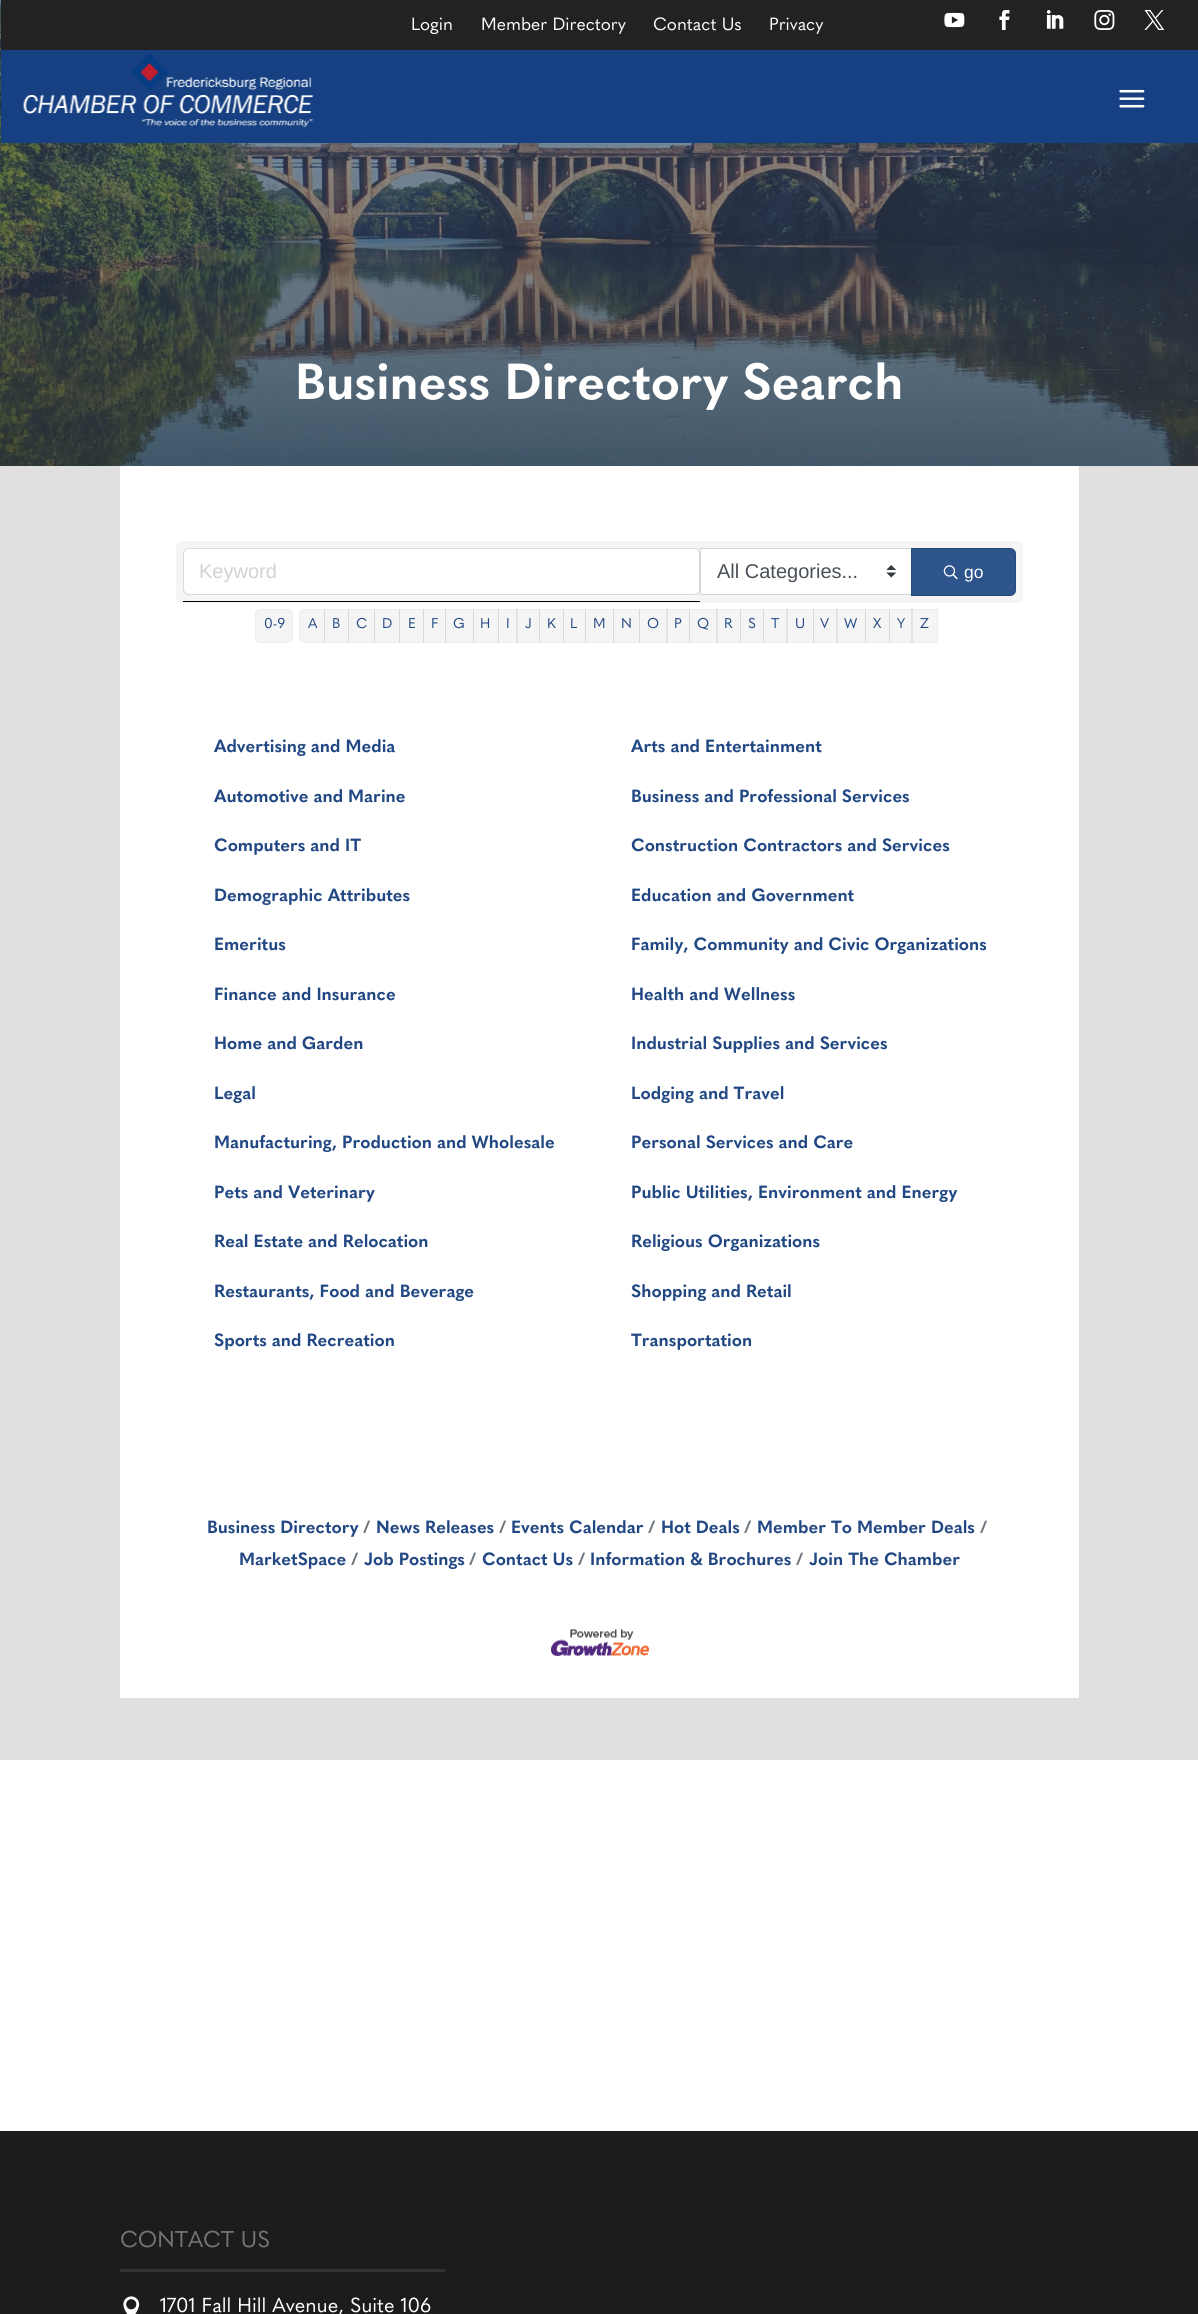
import math
import cairo

surface = cairo.ImageSurface(cairo.FORMAT_RGB24, 1198, 2314)
ctx = cairo.Context(surface)
options = cairo.FontOptions()
options.set_hint_metrics(cairo.HINT_METRICS_OFF)
options.set_hint_style(cairo.HINT_STYLE_NONE)
ctx.set_font_options(options)
ctx.set_miter_limit(4)


def set_color(code):
    ctx.set_source_rgb(*(v / 255 for v in bytes.fromhex(code[-6:])))


def draw_text(x, y, s, family, size, color, bold=False, italic=False):
    ctx.select_font_face(family, cairo.FONT_SLANT_ITALIC if italic else cairo.FONT_SLANT_NORMAL, cairo.FONT_WEIGHT_BOLD if bold else cairo.FONT_WEIGHT_NORMAL)
    ctx.set_font_size(size)
    set_color(color)
    ctx.move_to(x, y)
    ctx.show_text(s)


def fill_rect(x, y, w, h, color):
    set_color(color)
    ctx.rectangle(x, y, w, h)
    ctx.fill()


def rounded_rect(x, y, w, h, r):
    ctx.new_sub_path()
    for i, (u, v) in enumerate([(x + w - r, y + h - r), (x + r, y + h - r), (x + r, y + r), (x + w - r, y + r)]):
        ctx.arc(u, v, r, i * math.pi / 2, (i + 1) * math.pi / 2)
    ctx.close_path()


def draw_image(path, x, y, w, h):
    ctx.save()
    ctx.set_source_surface(cairo.ImageSurface.create_from_png(path), x, y)
    ctx.rectangle(x, y, w, h)
    ctx.fill()
    ctx.restore()


set_color("#ffffff")
ctx.paint()
draw_image("assets/img8.png", 0, 0, 1198, 466)
fill_rect(1, 0, 1197, 50, "#222222")
draw_text(411, 30, "Login", "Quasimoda", 17.5, "#ffffff")
draw_text(481, 30, "Member Directory", "Quasimoda", 17.5, "#ffffff")
draw_text(653, 30, "Contact Us", "Quasimoda", 17.5, "#ffffff")
draw_text(769, 30, "Privacy", "Quasimoda", 17.5, "#ffffff")
draw_image("assets/img1.png", 944, 12, 21, 16)
draw_image("assets/img2.png", 999, 10, 11, 20)
draw_image("assets/img3.png", 1046, 10, 18, 19)
draw_image("assets/img4.png", 1094, 10, 21, 20)
draw_image("assets/img5.png", 1144, 10, 21, 20)
fill_rect(1, 50, 1197, 93, "#164081")
draw_image("assets/img6.png", 23, 54, 291, 73)
draw_image("assets/img7.png", 1119, 89, 26, 19)
draw_text(295, 399, "Business Directory Search", "Quasimoda", 50, "#ffffff", bold=True)
fill_rect(0, 466, 1198, 1294, "#e0e0e0")
fill_rect(120, 466, 959, 1232, "#ffffff")
set_color("#f5f5f5")
rounded_rect(176, 541, 847, 62, 6)
ctx.fill()
fill_rect(183, 601, 517, 1, "#000000")
set_color("#ffffff")
rounded_rect(184, 549, 515, 45, 5)
ctx.fill()
rounded_rect(183.5, 548.5, 516, 46, 5.5)
ctx.set_source_rgba(0, 0, 0, 0.12)
ctx.set_line_width(1)
ctx.stroke()
draw_text(199, 578, "Keyword", "Liberation Sans", 20, "#d2d2d2")
fill_rect(701, 549, 210, 45, "#ffffff")
draw_image("assets/img9.png", 886, 565, 10, 13)
ctx.rectangle(700.5, 548.5, 212, 46)
set_color("#ced4da")
ctx.stroke()
draw_text(717, 578, "All Categories...", "Liberation Sans", 20, "#495057")
set_color("#2d548b")
ctx.new_path()
ctx.move_to(911, 548)
ctx.line_to(1010, 548)
ctx.curve_to(1013.5, 548, 1016, 550.5, 1016, 554)
ctx.line_to(1016, 590)
ctx.curve_to(1016, 593.5, 1013.5, 596, 1010, 596)
ctx.line_to(911, 596)
ctx.close_path()
ctx.fill()
ctx.new_path()
ctx.move_to(911.5, 548.5)
ctx.line_to(1010, 548.5)
ctx.curve_to(1013, 548.5, 1015.5, 551, 1015.5, 554)
ctx.line_to(1015.5, 590)
ctx.curve_to(1015.5, 593, 1013, 595.5, 1010, 595.5)
ctx.line_to(911.5, 595.5)
ctx.close_path()
ctx.set_source_rgba(0, 0, 0, 0.12)
ctx.stroke()
draw_image("assets/img10.png", 943, 565, 15, 15)
draw_text(964, 578, "go", "Liberation Sans", 17.5, "#ffffff")
set_color("#f5f5f5")
rounded_rect(255.5, 609.5, 37, 33, 5.5)
ctx.fill_preserve()
set_color("#ebebeb")
ctx.stroke()
draw_text(264, 628, "0-9", "Quasimoda", 14, "#224884")
set_color("#f5f5f5")
ctx.new_path()
ctx.move_to(305, 609.5)
ctx.line_to(324.5, 609.5)
ctx.line_to(324.5, 642.5)
ctx.line_to(305, 642.5)
ctx.curve_to(302, 642.5, 299.5, 640, 299.5, 637)
ctx.line_to(299.5, 615)
ctx.curve_to(299.5, 612, 302, 609.5, 305, 609.5)
ctx.close_path()
ctx.fill_preserve()
set_color("#ebebeb")
ctx.stroke()
draw_text(308, 628, "A", "Quasimoda", 14, "#224884")
ctx.set_source_rgba(0, 0, 0, 0.04)
ctx.rectangle(324, 609, 25, 34)
ctx.fill()
ctx.rectangle(324.5, 609.5, 24, 33)
ctx.stroke()
draw_text(332, 628, "B", "Quasimoda", 14, "#224884")
ctx.set_source_rgba(0, 0, 0, 0.04)
ctx.rectangle(348, 609, 27, 34)
ctx.fill()
ctx.rectangle(348.5, 609.5, 26, 33)
ctx.stroke()
draw_text(356, 628, "C", "Quasimoda", 14, "#224884")
ctx.set_source_rgba(0, 0, 0, 0.04)
ctx.rectangle(374, 609, 26, 34)
ctx.fill()
ctx.rectangle(374.5, 609.5, 25, 33)
ctx.stroke()
draw_text(382, 628, "D", "Quasimoda", 14, "#224884")
ctx.set_source_rgba(0, 0, 0, 0.04)
ctx.rectangle(399, 609, 25, 34)
ctx.fill()
ctx.rectangle(399.5, 609.5, 24, 33)
ctx.stroke()
draw_text(408, 628, "E", "Quasimoda", 14, "#224884")
ctx.set_source_rgba(0, 0, 0, 0.04)
ctx.rectangle(423, 609, 23, 34)
ctx.fill()
ctx.rectangle(423.5, 609.5, 22, 33)
ctx.stroke()
draw_text(431, 628, "F", "Quasimoda", 14, "#224884")
ctx.set_source_rgba(0, 0, 0, 0.04)
ctx.rectangle(445, 609, 29, 34)
ctx.fill()
ctx.rectangle(445.5, 609.5, 28, 33)
ctx.stroke()
draw_text(453, 628, "G", "Quasimoda", 14, "#224884")
ctx.set_source_rgba(0, 0, 0, 0.04)
ctx.rectangle(473, 609, 26, 34)
ctx.fill()
ctx.rectangle(473.5, 609.5, 25, 33)
ctx.stroke()
draw_text(480, 628, "H", "Quasimoda", 14, "#224884")
ctx.set_source_rgba(0, 0, 0, 0.04)
ctx.rectangle(498, 609, 20, 34)
ctx.fill()
ctx.rectangle(498.5, 609.5, 19, 33)
ctx.stroke()
draw_text(506, 628, "I", "Quasimoda", 14, "#224884")
ctx.set_source_rgba(0, 0, 0, 0.04)
ctx.rectangle(516, 609, 24, 34)
ctx.fill()
ctx.rectangle(516.5, 609.5, 23, 33)
ctx.stroke()
draw_text(525, 628, "J", "Quasimoda", 14, "#224884")
ctx.set_source_rgba(0, 0, 0, 0.04)
ctx.rectangle(539, 609, 25, 34)
ctx.fill()
ctx.rectangle(539.5, 609.5, 24, 33)
ctx.stroke()
draw_text(547, 628, "K", "Quasimoda", 14, "#224884")
ctx.set_source_rgba(0, 0, 0, 0.04)
ctx.rectangle(563, 609, 23, 34)
ctx.fill()
ctx.rectangle(563.5, 609.5, 22, 33)
ctx.stroke()
draw_text(570, 628, "L", "Quasimoda", 14, "#224884")
ctx.set_source_rgba(0, 0, 0, 0.04)
ctx.rectangle(585, 609, 29, 34)
ctx.fill()
ctx.rectangle(585.5, 609.5, 28, 33)
ctx.stroke()
draw_text(593, 628, "M", "Quasimoda", 14, "#224884")
ctx.set_source_rgba(0, 0, 0, 0.04)
ctx.rectangle(613, 609, 27, 34)
ctx.fill()
ctx.rectangle(613.5, 609.5, 26, 33)
ctx.stroke()
draw_text(621, 628, "N", "Quasimoda", 14, "#224884")
ctx.set_source_rgba(0, 0, 0, 0.04)
ctx.rectangle(639, 609, 29, 34)
ctx.fill()
ctx.rectangle(639.5, 609.5, 28, 33)
ctx.stroke()
draw_text(647, 628, "O", "Quasimoda", 14, "#224884")
ctx.set_source_rgba(0, 0, 0, 0.04)
ctx.rectangle(666, 609, 24, 34)
ctx.fill()
ctx.rectangle(666.5, 609.5, 23, 33)
ctx.stroke()
draw_text(674, 628, "P", "Quasimoda", 14, "#224884")
ctx.set_source_rgba(0, 0, 0, 0.04)
ctx.rectangle(689, 609, 29, 34)
ctx.fill()
ctx.rectangle(689.5, 609.5, 28, 33)
ctx.stroke()
draw_text(697, 628, "Q", "Quasimoda", 14, "#224884")
ctx.set_source_rgba(0, 0, 0, 0.04)
ctx.rectangle(716, 609, 25, 34)
ctx.fill()
ctx.rectangle(716.5, 609.5, 24, 33)
ctx.stroke()
draw_text(724, 628, "R", "Quasimoda", 14, "#224884")
ctx.set_source_rgba(0, 0, 0, 0.04)
ctx.rectangle(740, 609, 24, 34)
ctx.fill()
ctx.rectangle(740.5, 609.5, 23, 33)
ctx.stroke()
draw_text(748, 628, "S", "Quasimoda", 14, "#224884")
ctx.set_source_rgba(0, 0, 0, 0.04)
ctx.rectangle(763, 609, 25, 34)
ctx.fill()
ctx.rectangle(763.5, 609.5, 24, 33)
ctx.stroke()
draw_text(771, 628, "T", "Quasimoda", 14, "#224884")
ctx.set_source_rgba(0, 0, 0, 0.04)
ctx.rectangle(786, 609, 28, 34)
ctx.fill()
ctx.rectangle(786.5, 609.5, 27, 33)
ctx.stroke()
draw_text(795, 628, "U", "Quasimoda", 14, "#224884")
ctx.set_source_rgba(0, 0, 0, 0.04)
ctx.rectangle(813, 609, 25, 34)
ctx.fill()
ctx.rectangle(813.5, 609.5, 24, 33)
ctx.stroke()
draw_text(820, 628, "V", "Quasimoda", 14, "#224884")
ctx.set_source_rgba(0, 0, 0, 0.04)
ctx.rectangle(836, 609, 30, 34)
ctx.fill()
ctx.rectangle(836.5, 609.5, 29, 33)
ctx.stroke()
draw_text(844, 628, "W", "Quasimoda", 14, "#224884")
ctx.set_source_rgba(0, 0, 0, 0.04)
ctx.rectangle(865, 609, 25, 34)
ctx.fill()
ctx.rectangle(865.5, 609.5, 24, 33)
ctx.stroke()
draw_text(873, 628, "X", "Quasimoda", 14, "#224884")
ctx.set_source_rgba(0, 0, 0, 0.04)
ctx.rectangle(889, 609, 24, 34)
ctx.fill()
ctx.rectangle(889.5, 609.5, 23, 33)
ctx.stroke()
draw_text(897, 628, "Y", "Quasimoda", 14, "#224884")
ctx.set_source_rgba(0, 0, 0, 0.04)
ctx.rectangle(911, 609, 27, 34)
ctx.fill()
ctx.rectangle(911.5, 609.5, 26, 33)
ctx.stroke()
draw_text(920, 628, "Z", "Quasimoda", 14, "#224884")
draw_text(214, 752, "Advertising and Media", "Quasimoda", 17.5, "#224884", bold=True)
draw_text(631, 752, "Arts and Entertainment", "Quasimoda", 17.5, "#224884", bold=True)
draw_text(214, 802, "Automotive and Marine", "Quasimoda", 17.5, "#224884", bold=True)
draw_text(631, 802, "Business and Professional Services", "Quasimoda", 17.5, "#224884", bold=True)
draw_text(214, 851, "Computers and IT", "Quasimoda", 17.5, "#224884", bold=True)
draw_text(631, 851, "Construction Contractors and Services", "Quasimoda", 17.5, "#224884", bold=True)
draw_text(214, 901, "Demographic Attributes", "Quasimoda", 17.5, "#224884", bold=True)
draw_text(631, 901, "Education and Government", "Quasimoda", 17.5, "#224884", bold=True)
draw_text(214, 950, "Emeritus", "Quasimoda", 17.5, "#224884", bold=True)
draw_text(631, 950, "Family, Community and Civic Organizations", "Quasimoda", 17.5, "#224884", bold=True)
draw_text(214, 1000, "Finance and Insurance", "Quasimoda", 17.5, "#224884", bold=True)
draw_text(631, 1000, "Health and Wellness", "Quasimoda", 17.5, "#224884", bold=True)
draw_text(214, 1049, "Home and Garden", "Quasimoda", 17.5, "#224884", bold=True)
draw_text(631, 1049, "Industrial Supplies and Services", "Quasimoda", 17.5, "#224884", bold=True)
draw_text(214, 1099, "Legal", "Quasimoda", 17.5, "#224884", bold=True)
draw_text(631, 1099, "Lodging and Travel", "Quasimoda", 17.5, "#224884", bold=True)
draw_text(214, 1148, "Manufacturing, Production and Wholesale", "Quasimoda", 17.5, "#224884", bold=True)
draw_text(631, 1148, "Personal Services and Care", "Quasimoda", 17.5, "#224884", bold=True)
draw_text(214, 1198, "Pets and Veterinary", "Quasimoda", 17.5, "#224884", bold=True)
draw_text(631, 1198, "Public Utilities, Environment and Energy", "Quasimoda", 17.5, "#224884", bold=True)
draw_text(214, 1247, "Real Estate and Relocation", "Quasimoda", 17.5, "#224884", bold=True)
draw_text(631, 1247, "Religious Organizations", "Quasimoda", 17.5, "#224884", bold=True)
draw_text(214, 1297, "Restaurants, Food and Beverage", "Quasimoda", 17.5, "#224884", bold=True)
draw_text(631, 1297, "Shopping and Retail", "Quasimoda", 17.5, "#224884", bold=True)
draw_text(214, 1346, "Sports and Recreation", "Quasimoda", 17.5, "#224884", bold=True)
draw_text(631, 1346, "Transportation", "Quasimoda", 17.5, "#224884", bold=True)
draw_text(207, 1533, "Business Directory", "Quasimoda", 17.5, "#224884", bold=True)
draw_text(980, 1533, "/", "Quasimoda", 17.5, "#6c757d", bold=True)
draw_text(239, 1565, "MarketSpace", "Quasimoda", 17.5, "#224884", bold=True)
draw_text(363, 1533, "/", "Quasimoda", 17.5, "#6c757d", bold=True)
draw_text(376, 1533, "News Releases", "Quasimoda", 17.5, "#224884", bold=True)
draw_text(499, 1533, "/", "Quasimoda", 17.5, "#6c757d", bold=True)
draw_text(511, 1533, "Events Calendar", "Quasimoda", 17.5, "#224884", bold=True)
draw_text(648, 1533, "/", "Quasimoda", 17.5, "#6c757d", bold=True)
draw_text(661, 1533, "Hot Deals", "Quasimoda", 17.5, "#224884", bold=True)
draw_text(744, 1533, "/", "Quasimoda", 17.5, "#6c757d", bold=True)
draw_text(757, 1533, "Member To Member Deals", "Quasimoda", 17.5, "#224884", bold=True)
draw_text(351, 1565, "/", "Quasimoda", 17.5, "#6c757d", bold=True)
draw_text(364, 1565, "Job Postings", "Quasimoda", 17.5, "#224884", bold=True)
draw_text(469, 1565, "/", "Quasimoda", 17.5, "#6c757d", bold=True)
draw_text(482, 1565, "Contact Us", "Quasimoda", 17.5, "#224884", bold=True)
draw_text(578, 1565, "/", "Quasimoda", 17.5, "#6c757d", bold=True)
draw_text(590, 1565, "Information & Brochures", "Quasimoda", 17.5, "#224884", bold=True)
draw_text(796, 1565, "/", "Quasimoda", 17.5, "#6c757d", bold=True)
draw_text(809, 1565, "Join The Chamber", "Quasimoda", 17.5, "#224884", bold=True)
draw_image("assets/img11.png", 551, 1629, 98, 27)
fill_rect(0, 2131, 1198, 183, "#1c1c1c")
fill_rect(120, 2269, 325, 3, "#333333")
draw_text(120, 2247, "CONTACT US", "Quasimoda", 22.5, "#757575")
draw_image("assets/img12.png", 123, 2296, 17, 18)
draw_text(160, 2312, "1701 Fall Hill Avenue, Suite 106", "Quasimoda", 20, "#ffffff")
surface.write_to_png("output.png")
